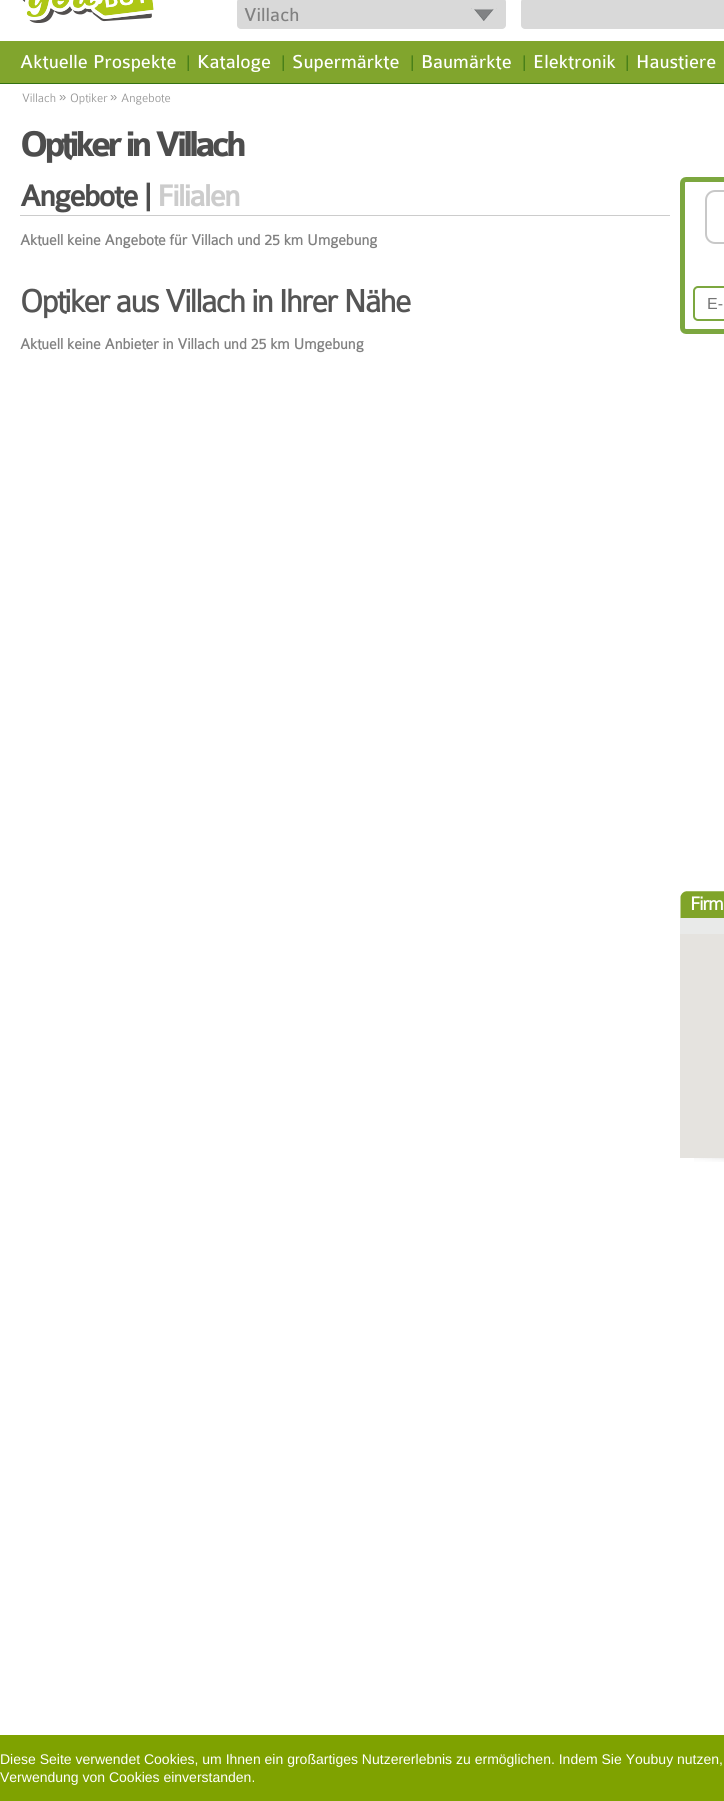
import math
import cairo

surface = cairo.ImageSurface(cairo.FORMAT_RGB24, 724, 1801)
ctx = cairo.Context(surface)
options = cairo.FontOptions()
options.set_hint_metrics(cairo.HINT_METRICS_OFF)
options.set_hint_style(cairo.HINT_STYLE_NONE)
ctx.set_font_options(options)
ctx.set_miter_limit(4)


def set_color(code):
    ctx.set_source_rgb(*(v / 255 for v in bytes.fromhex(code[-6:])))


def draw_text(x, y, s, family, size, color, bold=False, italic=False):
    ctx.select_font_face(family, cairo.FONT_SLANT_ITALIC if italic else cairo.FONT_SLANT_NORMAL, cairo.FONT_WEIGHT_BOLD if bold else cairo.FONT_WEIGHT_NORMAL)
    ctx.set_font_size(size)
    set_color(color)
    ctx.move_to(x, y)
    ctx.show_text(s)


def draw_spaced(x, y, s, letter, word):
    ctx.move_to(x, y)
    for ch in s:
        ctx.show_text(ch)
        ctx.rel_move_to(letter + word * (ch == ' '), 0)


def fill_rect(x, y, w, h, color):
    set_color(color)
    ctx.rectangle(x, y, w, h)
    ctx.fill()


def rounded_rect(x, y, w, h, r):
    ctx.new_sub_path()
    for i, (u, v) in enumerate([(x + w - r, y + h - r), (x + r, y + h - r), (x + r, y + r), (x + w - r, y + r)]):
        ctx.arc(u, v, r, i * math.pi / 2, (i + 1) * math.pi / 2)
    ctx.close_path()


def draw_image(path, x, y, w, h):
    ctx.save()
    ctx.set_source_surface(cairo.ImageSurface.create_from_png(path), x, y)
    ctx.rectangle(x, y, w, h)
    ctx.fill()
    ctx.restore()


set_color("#ffffff")
ctx.paint()
draw_image("assets/img1.png", 22, 0, 132, 23)
set_color("#d9d9d9")
rounded_rect(237, -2, 269, 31, 4)
ctx.fill()
draw_text(244, 21, "Villach", "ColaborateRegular", 20, "#818181")
draw_image("assets/img2.png", 471, 8, 26, 13)
set_color("#d9d9d9")
rounded_rect(521, -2, 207, 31, 4)
ctx.fill()
fill_rect(0, 41, 724, 42, "#81a52d")
fill_rect(0, 83, 724, 1, "#337211")
draw_text(20, 68, "Aktuelle Prospekte", "ColaborateRegular", 20, "#ffffff")
draw_text(186, 68, "|", "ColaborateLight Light", 18, "#337211")
draw_text(197, 68, "Kataloge", "ColaborateRegular", 20, "#ffffff")
draw_text(281, 68, "|", "ColaborateLight Light", 18, "#337211")
draw_text(292, 68, "Supermärkte", "ColaborateRegular", 20, "#ffffff")
draw_text(410, 68, "|", "ColaborateLight Light", 18, "#337211")
draw_text(421, 68, "Baumärkte", "ColaborateRegular", 20, "#ffffff")
draw_text(522, 68, "|", "ColaborateLight Light", 18, "#337211")
draw_text(533, 68, "Elektronik", "ColaborateRegular", 20, "#ffffff")
draw_text(625, 68, "|", "ColaborateLight Light", 18, "#337211")
draw_text(636, 68, "Haustiere", "ColaborateRegular", 20, "#ffffff")
draw_text(22, 102, "Villach", "ColaborateLight Light", 13, "#979797")
draw_text(59, 101, "»", "Liberation Sans", 13, "#979797")
draw_text(70, 102, "Optiker", "ColaborateLight Light", 13, "#979797")
draw_text(110, 101, "»", "Liberation Sans", 13, "#979797")
draw_text(121, 102, "Angebote", "ColaborateLight Light", 13, "#979797")
ctx.select_font_face("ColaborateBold", cairo.FONT_SLANT_NORMAL, cairo.FONT_WEIGHT_BOLD)
ctx.set_font_size(38)
set_color("#4d4d4d")
draw_spaced(20, 156, "Optiker in Villach", -4, 0)
fill_rect(20, 215, 650, 1, "#cccccc")
ctx.select_font_face("ColaborateRegular", cairo.FONT_SLANT_NORMAL, cairo.FONT_WEIGHT_BOLD)
ctx.set_font_size(32)
set_color("#4d4d4d")
draw_spaced(20, 206, "Angebote |", -1.5, 0)
set_color("#cccccc")
draw_spaced(157, 206, "Filialen", -1.5, 0)
draw_text(20, 245, "Aktuell keine Angebote für Villach und 25 km Umgebung", "ColaborateLight", 16, "#818181", bold=True)
ctx.set_font_size(34)
set_color("#555555")
draw_spaced(20, 312, "Optiker aus Villach in Ihrer Nähe", -1.4, 0)
draw_text(20, 349, "Aktuell keine Anbieter in Villach und 25 km Umgebung", "ColaborateLight", 16, "#818181", bold=True)
rounded_rect(682.5, 179.5, 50, 152, 3.5)
set_color("#7ca73f")
ctx.set_line_width(5)
ctx.stroke()
rounded_rect(706, 191, 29, 52, 9)
set_color("#c8c8c8")
ctx.set_line_width(2)
ctx.stroke()
rounded_rect(694, 287, 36, 33, 4)
set_color("#7ca73f")
ctx.stroke()
draw_text(707, 309, "E-", "Liberation Sans", 16, "#757575")
draw_image("assets/img3.png", 680, 891, 44, 27)
ctx.select_font_face("ColaborateLight", cairo.FONT_SLANT_NORMAL, cairo.FONT_WEIGHT_BOLD)
ctx.set_font_size(20)
set_color("#ffffff")
draw_spaced(690, 910, "Firm", -1, 0)
fill_rect(680, 918, 44, 16, "#e9eae9")
fill_rect(680, 934, 44, 224, "#e5e3df")
draw_image("assets/img4.png", 694, 1158, 30, 4)
fill_rect(0, 1735, 724, 66, "#7fa200")
draw_text(0, 1764, "Diese Seite verwendet Cookies, um Ihnen ein großartiges Nutzererlebnis zu ermöglichen. Indem Sie Youbuy nutzen,", "Liberation Sans", 14, "#ffffff")
draw_text(0, 1782, "Verwendung von Cookies einverstanden.", "Liberation Sans", 14, "#ffffff")
surface.write_to_png("output.png")
